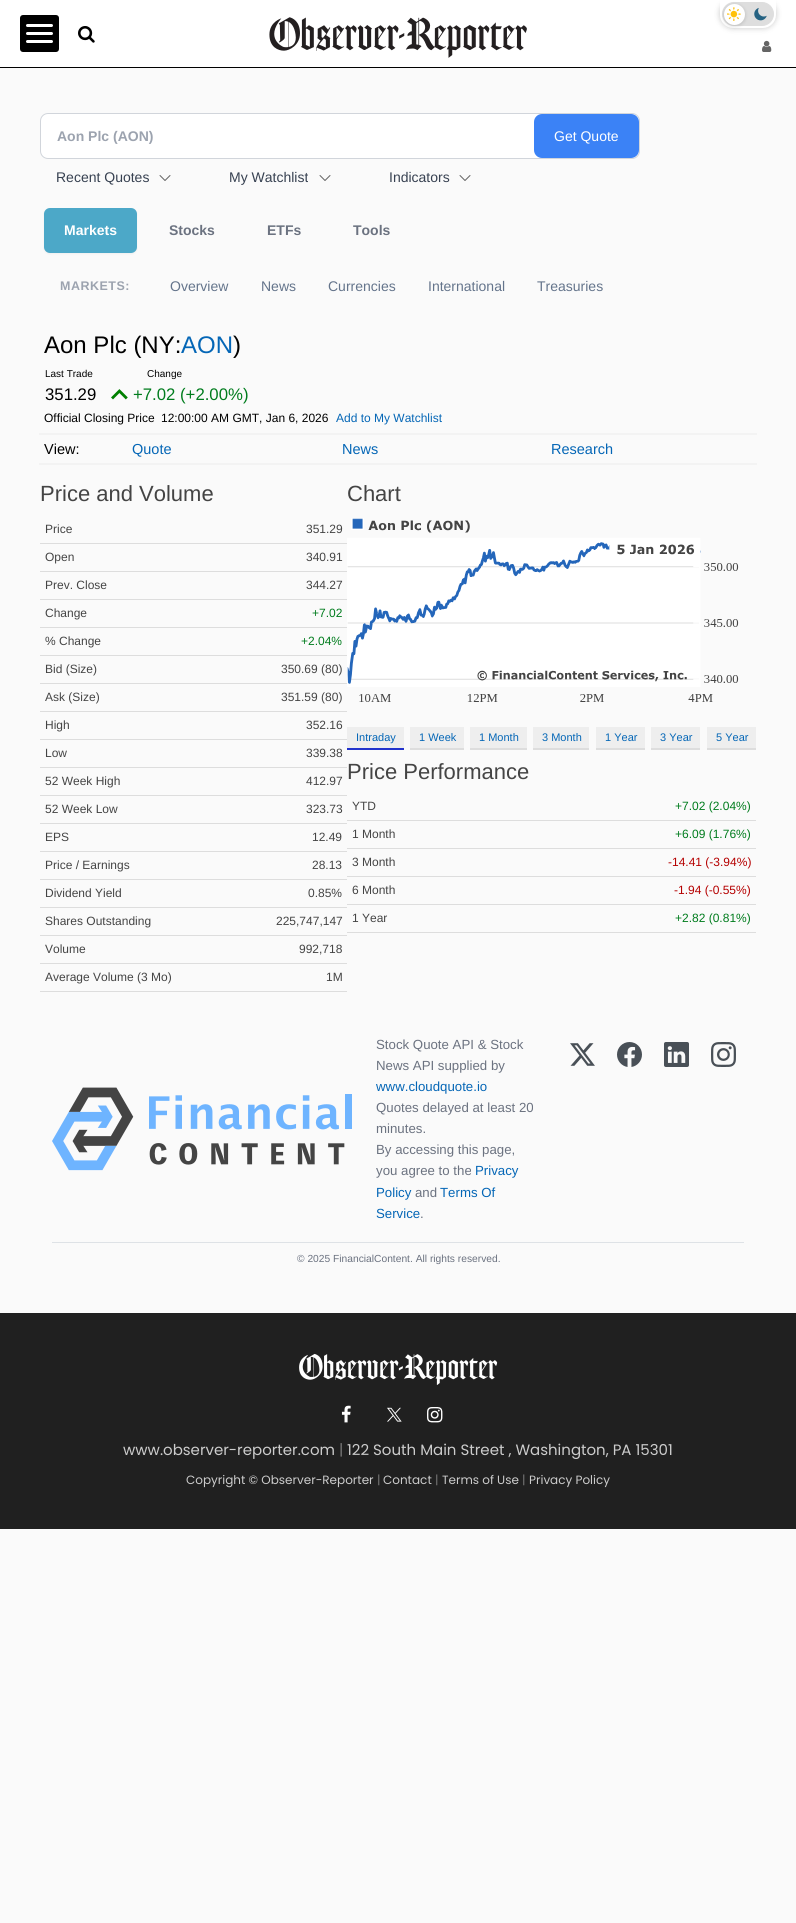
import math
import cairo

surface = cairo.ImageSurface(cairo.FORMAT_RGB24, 796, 1923)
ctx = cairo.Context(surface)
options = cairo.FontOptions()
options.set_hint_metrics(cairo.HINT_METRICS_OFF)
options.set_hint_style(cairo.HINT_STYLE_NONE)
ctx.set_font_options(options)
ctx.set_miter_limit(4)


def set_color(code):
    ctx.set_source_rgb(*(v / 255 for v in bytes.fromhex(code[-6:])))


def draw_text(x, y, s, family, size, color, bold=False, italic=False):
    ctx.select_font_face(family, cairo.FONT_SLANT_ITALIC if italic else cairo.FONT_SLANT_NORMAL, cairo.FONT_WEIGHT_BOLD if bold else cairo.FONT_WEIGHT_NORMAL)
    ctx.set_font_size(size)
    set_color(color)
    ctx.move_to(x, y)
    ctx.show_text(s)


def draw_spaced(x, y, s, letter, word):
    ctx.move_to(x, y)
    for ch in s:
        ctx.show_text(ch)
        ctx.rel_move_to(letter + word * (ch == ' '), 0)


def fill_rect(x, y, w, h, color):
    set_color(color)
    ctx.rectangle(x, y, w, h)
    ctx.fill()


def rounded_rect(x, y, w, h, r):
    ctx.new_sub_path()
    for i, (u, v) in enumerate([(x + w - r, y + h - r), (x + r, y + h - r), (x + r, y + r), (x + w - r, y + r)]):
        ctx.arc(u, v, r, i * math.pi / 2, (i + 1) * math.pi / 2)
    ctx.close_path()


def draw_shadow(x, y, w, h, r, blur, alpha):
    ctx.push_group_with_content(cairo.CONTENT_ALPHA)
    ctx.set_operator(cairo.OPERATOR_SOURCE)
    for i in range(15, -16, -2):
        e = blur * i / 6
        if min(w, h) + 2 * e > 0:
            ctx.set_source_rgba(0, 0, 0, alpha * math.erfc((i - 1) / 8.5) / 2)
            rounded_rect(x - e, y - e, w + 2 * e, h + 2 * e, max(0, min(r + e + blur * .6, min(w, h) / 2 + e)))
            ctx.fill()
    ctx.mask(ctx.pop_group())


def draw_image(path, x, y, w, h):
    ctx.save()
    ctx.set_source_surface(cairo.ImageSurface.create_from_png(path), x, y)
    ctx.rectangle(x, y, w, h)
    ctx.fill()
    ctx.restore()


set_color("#fafafa")
ctx.paint()
fill_rect(0, 0, 796, 67, "#ffffff")
fill_rect(0, 67, 796, 1, "#000000")
rounded_rect(20, 15, 39, 37, 3)
ctx.fill()
set_color("#ffffff")
rounded_rect(26, 24, 27, 3, 1.5)
ctx.fill()
rounded_rect(26, 32, 27, 3, 1.5)
ctx.fill()
rounded_rect(26, 40, 27, 3, 1.5)
ctx.fill()
draw_image("assets/img1.png", 78, 26, 17, 17)
draw_image("assets/img2.png", 269, 17, 258, 41)
draw_image("assets/img3.png", 762, 40, 10, 12)
set_color("#000000")
draw_shadow(720, 0, 56, 28, 13, 3, 0.22)
set_color("#ffffff")
ctx.new_path()
ctx.move_to(720, 0)
ctx.line_to(776, 0)
ctx.line_to(776, 15)
ctx.curve_to(776, 22, 770, 28, 763, 28)
ctx.line_to(733, 28)
ctx.curve_to(726, 28, 720, 22, 720, 15)
ctx.close_path()
ctx.fill()
set_color("#dedede")
rounded_rect(722.5, 2.5, 51, 23, 11.5)
ctx.fill_preserve()
ctx.set_line_width(1)
ctx.stroke()
set_color("#000000")
draw_shadow(724, 5, 21, 21, 10.5, 2, 0.16)
set_color("#ffffff")
ctx.arc(734.5, 14.5, 10.5, 0, 2 * math.pi)
ctx.fill()
draw_image("assets/img4.png", 727, 7, 14, 14)
draw_image("assets/img5.png", 754, 7, 13, 14)
rounded_rect(40.5, 113.5, 599, 45, 7.5)
ctx.fill_preserve()
set_color("#d1d5db")
ctx.stroke()
draw_text(57, 141, "Aon Plc (AON)", "Liberation Sans", 14, "#9ca3af", bold=True)
set_color("#3b82f6")
rounded_rect(534, 114, 105, 44, 8)
ctx.fill()
draw_text(554, 141, "Get Quote", "Liberation Sans", 14, "#ffffff")
draw_text(56, 182, "Recent Quotes", "Liberation Sans", 14, "#374151")
ctx.new_path()
ctx.move_to(170, 175.5)
ctx.line_to(165, 180.5)
ctx.line_to(160, 175.5)
set_color("#646464")
ctx.set_line_cap(cairo.LINE_CAP_ROUND)
ctx.set_line_join(cairo.LINE_JOIN_ROUND)
ctx.stroke()
draw_text(229, 182, "My Watchlist", "Liberation Sans", 14, "#374151")
ctx.new_path()
ctx.move_to(330, 175.5)
ctx.line_to(325, 180.5)
ctx.line_to(320, 175.5)
set_color("#646464")
ctx.stroke()
draw_text(389, 182, "Indicators", "Liberation Sans", 14, "#374151")
ctx.new_path()
ctx.move_to(470, 175.5)
ctx.line_to(465, 180.5)
ctx.line_to(460, 175.5)
set_color("#646464")
ctx.stroke()
set_color("#000000")
draw_shadow(44, 209, 93, 45, 6, 1, 0.05)
set_color("#4ca8c8")
rounded_rect(44, 208, 93, 45, 6)
ctx.fill()
draw_text(64, 235, "Markets", "Liberation Sans", 14, "#ffffff", bold=True)
draw_text(169, 235, "Stocks", "Liberation Sans", 14, "#6b7280", bold=True)
draw_text(267, 235, "ETFs", "Liberation Sans", 14, "#6b7280", bold=True)
draw_text(353, 235, "Tools", "Liberation Sans", 14, "#6b7280", bold=True)
ctx.set_font_size(12.5)
set_color("#9ca3af")
draw_spaced(60, 290, "MARKETS:", 0.5, 0)
draw_text(170, 291, "Overview", "Liberation Sans", 14, "#64748b")
draw_text(261, 291, "News", "Liberation Sans", 14, "#64748b")
draw_text(328, 291, "Currencies", "Liberation Sans", 14, "#64748b")
draw_text(428, 291, "International", "Liberation Sans", 14, "#64748b")
draw_text(537, 291, "Treasuries", "Liberation Sans", 14, "#64748b")
draw_text(44, 353, "Aon Plc (NY:", "Liberation Sans", 24, "#000000")
draw_text(181, 353, "AON", "Liberation Sans", 24, "#0466b6")
draw_text(233, 353, ")", "Liberation Sans", 24, "#000000")
draw_text(45, 377, "Last Trade", "Liberation Sans", 10, "#000000")
draw_text(45, 400, "351.29", "Liberation Sans", 16.75, "#000000")
draw_text(147, 377, "Change", "Liberation Sans", 10, "#000000")
draw_image("assets/img6.png", 111, 389, 17, 11)
draw_text(133, 400, "+7.02 (+2.00%)", "Liberation Sans", 16.75, "#007c1d")
draw_text(44, 422, "Official Closing Price", "Liberation Sans", 12, "#000000")
draw_text(161, 422, "12:00:00 AM GMT, Jan 6, 2026", "Liberation Sans", 12, "#000000")
draw_text(336, 422, "Add to My Watchlist", "Liberation Sans", 12, "#0466b6")
fill_rect(39, 433, 718, 2, "#f3f3f3")
fill_rect(39, 463, 718, 2, "#f3f3f3")
draw_text(44, 454, "View:", "Liberation Sans", 14.5, "#000000")
draw_text(132, 454, "Quote", "Liberation Sans", 14.5, "#0466b6")
draw_text(342, 454, "News", "Liberation Sans", 14.5, "#0466b6")
draw_text(551, 454, "Research", "Liberation Sans", 14.5, "#0466b6")
draw_text(40, 501, "Price and Volume", "Liberation Sans", 22, "#444444")
fill_rect(40, 543, 307, 1, "#dddddd")
draw_text(45, 533, "Price", "Liberation Sans", 12, "#444444")
draw_text(306, 533, "351.29", "Liberation Sans", 12, "#444444")
fill_rect(40, 571, 307, 1, "#dddddd")
draw_text(45, 561, "Open", "Liberation Sans", 12, "#444444")
draw_text(306, 561, "340.91", "Liberation Sans", 12, "#444444")
fill_rect(40, 599, 307, 1, "#dddddd")
draw_text(45, 589, "Prev. Close", "Liberation Sans", 12, "#444444")
draw_text(306, 589, "344.27", "Liberation Sans", 12, "#444444")
fill_rect(40, 627, 307, 1, "#dddddd")
draw_text(45, 617, "Change", "Liberation Sans", 12, "#444444")
draw_text(312, 617, "+7.02", "Liberation Sans", 12, "#007c1d")
fill_rect(40, 655, 307, 1, "#dddddd")
draw_text(45, 645, "% Change", "Liberation Sans", 12, "#444444")
draw_text(301, 645, "+2.04%", "Liberation Sans", 12, "#007c1d")
fill_rect(40, 683, 307, 1, "#dddddd")
draw_text(45, 673, "Bid (Size)", "Liberation Sans", 12, "#444444")
draw_text(281, 673, "350.69 (80)", "Liberation Sans", 12, "#444444")
fill_rect(40, 711, 307, 1, "#dddddd")
draw_text(45, 701, "Ask (Size)", "Liberation Sans", 12, "#444444")
draw_text(281, 701, "351.59 (80)", "Liberation Sans", 12, "#444444")
fill_rect(40, 739, 307, 1, "#dddddd")
draw_text(45, 729, "High", "Liberation Sans", 12, "#444444")
draw_text(306, 729, "352.16", "Liberation Sans", 12, "#444444")
fill_rect(40, 767, 307, 1, "#dddddd")
draw_text(45, 757, "Low", "Liberation Sans", 12, "#444444")
draw_text(306, 757, "339.38", "Liberation Sans", 12, "#444444")
fill_rect(40, 795, 307, 1, "#dddddd")
draw_text(45, 785, "52 Week High", "Liberation Sans", 12, "#444444")
draw_text(306, 785, "412.97", "Liberation Sans", 12, "#444444")
fill_rect(40, 823, 307, 1, "#dddddd")
draw_text(45, 813, "52 Week Low", "Liberation Sans", 12, "#444444")
draw_text(306, 813, "323.73", "Liberation Sans", 12, "#444444")
fill_rect(40, 851, 307, 1, "#dddddd")
draw_text(45, 841, "EPS", "Liberation Sans", 12, "#444444")
draw_text(312, 841, "12.49", "Liberation Sans", 12, "#444444")
fill_rect(40, 879, 307, 1, "#dddddd")
draw_text(45, 869, "Price / Earnings", "Liberation Sans", 12, "#444444")
draw_text(312, 869, "28.13", "Liberation Sans", 12, "#444444")
fill_rect(40, 907, 307, 1, "#dddddd")
draw_text(45, 897, "Dividend Yield", "Liberation Sans", 12, "#444444")
draw_text(308, 897, "0.85%", "Liberation Sans", 12, "#444444")
fill_rect(40, 935, 307, 1, "#dddddd")
draw_text(45, 925, "Shares Outstanding", "Liberation Sans", 12, "#444444")
draw_text(276, 925, "225,747,147", "Liberation Sans", 12, "#444444")
fill_rect(40, 963, 307, 1, "#dddddd")
draw_text(45, 953, "Volume", "Liberation Sans", 12, "#444444")
draw_text(299, 953, "992,718", "Liberation Sans", 12, "#444444")
fill_rect(40, 991, 307, 1, "#dddddd")
draw_text(45, 981, "Average Volume (3 Mo)", "Liberation Sans", 12, "#444444")
draw_text(326, 981, "1M", "Liberation Sans", 12, "#444444")
draw_text(347, 501, "Chart", "Liberation Sans", 22, "#444444")
draw_image("assets/img7.png", 347, 518, 392, 184)
fill_rect(347, 727, 57, 21, "#eeeeee")
fill_rect(347, 748, 57, 2, "#2233cc")
draw_text(356, 741, "Intraday", "Liberation Sans", 11, "#0466b6")
fill_rect(410, 727, 54, 21, "#eeeeee")
fill_rect(410, 748, 54, 2, "#dddddd")
draw_text(419, 741, "1 Week", "Liberation Sans", 11, "#0466b6")
fill_rect(470, 727, 57, 21, "#eeeeee")
fill_rect(470, 748, 57, 2, "#dddddd")
draw_text(479, 741, "1 Month", "Liberation Sans", 11, "#0466b6")
fill_rect(533, 727, 56, 21, "#eeeeee")
fill_rect(533, 748, 56, 2, "#dddddd")
draw_text(542, 741, "3 Month", "Liberation Sans", 11, "#0466b6")
fill_rect(596, 727, 49, 21, "#eeeeee")
fill_rect(596, 748, 49, 2, "#dddddd")
draw_text(605, 741, "1 Year", "Liberation Sans", 11, "#0466b6")
fill_rect(651, 727, 49, 21, "#eeeeee")
fill_rect(651, 748, 49, 2, "#dddddd")
draw_text(660, 741, "3 Year", "Liberation Sans", 11, "#0466b6")
fill_rect(707, 727, 49, 21, "#eeeeee")
fill_rect(707, 748, 49, 2, "#dddddd")
draw_text(716, 741, "5 Year", "Liberation Sans", 11, "#0466b6")
draw_text(347, 779, "Price Performance", "Liberation Sans", 22, "#444444")
fill_rect(347, 820, 409, 1, "#dddddd")
draw_text(352, 810, "YTD", "Liberation Sans", 12, "#444444")
draw_text(675, 810, "+7.02 (2.04%)", "Liberation Sans", 12, "#007c1d")
fill_rect(347, 848, 409, 1, "#dddddd")
draw_text(352, 838, "1 Month", "Liberation Sans", 12, "#444444")
draw_text(675, 838, "+6.09 (1.76%)", "Liberation Sans", 12, "#007c1d")
fill_rect(347, 876, 409, 1, "#dddddd")
draw_text(352, 866, "3 Month", "Liberation Sans", 12, "#444444")
draw_text(668, 866, "-14.41 (-3.94%)", "Liberation Sans", 12, "#b50000")
fill_rect(347, 904, 409, 1, "#dddddd")
draw_text(352, 894, "6 Month", "Liberation Sans", 12, "#444444")
draw_text(674, 894, "-1.94 (-0.55%)", "Liberation Sans", 12, "#b50000")
fill_rect(347, 932, 409, 1, "#dddddd")
draw_text(352, 922, "1 Year", "Liberation Sans", 12, "#444444")
draw_text(675, 922, "+2.82 (0.81%)", "Liberation Sans", 12, "#007c1d")
draw_text(376, 1049, "Stock Quote API & Stock", "Liberation Sans", 13.25, "#6b7280")
draw_text(376, 1070, "News API supplied by", "Liberation Sans", 13.25, "#6b7280")
draw_text(376, 1091, "www.cloudquote.io", "Liberation Sans", 13.25, "#0466b6")
draw_text(376, 1112, "Quotes delayed at least 20", "Liberation Sans", 13.25, "#6b7280")
draw_text(376, 1133, "minutes.", "Liberation Sans", 13.25, "#6b7280")
draw_text(376, 1154, "By accessing this page,", "Liberation Sans", 13.25, "#6b7280")
draw_text(376, 1175, "you agree to the", "Liberation Sans", 13.25, "#6b7280")
draw_text(475, 1175, "Privacy", "Liberation Sans", 13.25, "#0466b6")
draw_text(376, 1197, "Policy", "Liberation Sans", 13.25, "#0466b6")
draw_text(415, 1197, "and", "Liberation Sans", 13.25, "#6b7280")
draw_text(440, 1197, "Terms Of", "Liberation Sans", 13.25, "#0466b6")
draw_text(376, 1218, "Service", "Liberation Sans", 13.25, "#0466b6")
draw_text(420, 1218, ".", "Liberation Sans", 13.25, "#6b7280")
draw_image("assets/img8.png", 570, 1043, 25, 23)
draw_image("assets/img9.png", 617, 1042, 25, 25)
draw_image("assets/img10.png", 664, 1042, 25, 25)
draw_image("assets/img11.png", 711, 1042, 25, 25)
draw_image("assets/img12.png", 52, 1087, 300, 84)
fill_rect(52, 1242, 692, 1, "#dee2e6")
draw_text(297, 1262, "© 2025 FinancialContent. All rights reserved.", "Liberation Sans", 10.25, "#6b7280")
fill_rect(0, 1313, 796, 216, "#202020")
draw_image("assets/img13.png", 299, 1353, 199, 32)
draw_image("assets/img14.png", 341, 1405, 10, 18)
draw_image("assets/img15.png", 387, 1407, 15, 15)
draw_image("assets/img16.png", 427, 1407, 16, 16)
draw_text(123, 1455, "www.observer-reporter.com", "Poppins", 15, "#cccccc")
draw_text(339, 1455, "|", "Poppins", 15, "#767676")
draw_text(347, 1455, "122 South Main Street , Washington, PA 15301", "Poppins", 15, "#cccccc")
draw_text(186, 1484, "Copyright © Observer-Reporter", "Poppins", 12, "#cccccc")
draw_text(377, 1484, "|", "Poppins", 12, "#767676")
draw_text(383, 1484, "Contact", "Poppins", 12, "#cccccc")
draw_text(435, 1484, "|", "Poppins", 12, "#767676")
draw_text(442, 1484, "Terms of Use", "Poppins", 12, "#cccccc")
draw_text(522, 1484, "|", "Poppins", 12, "#767676")
draw_text(529, 1484, "Privacy Policy", "Poppins", 12, "#cccccc")
surface.write_to_png("output.png")
